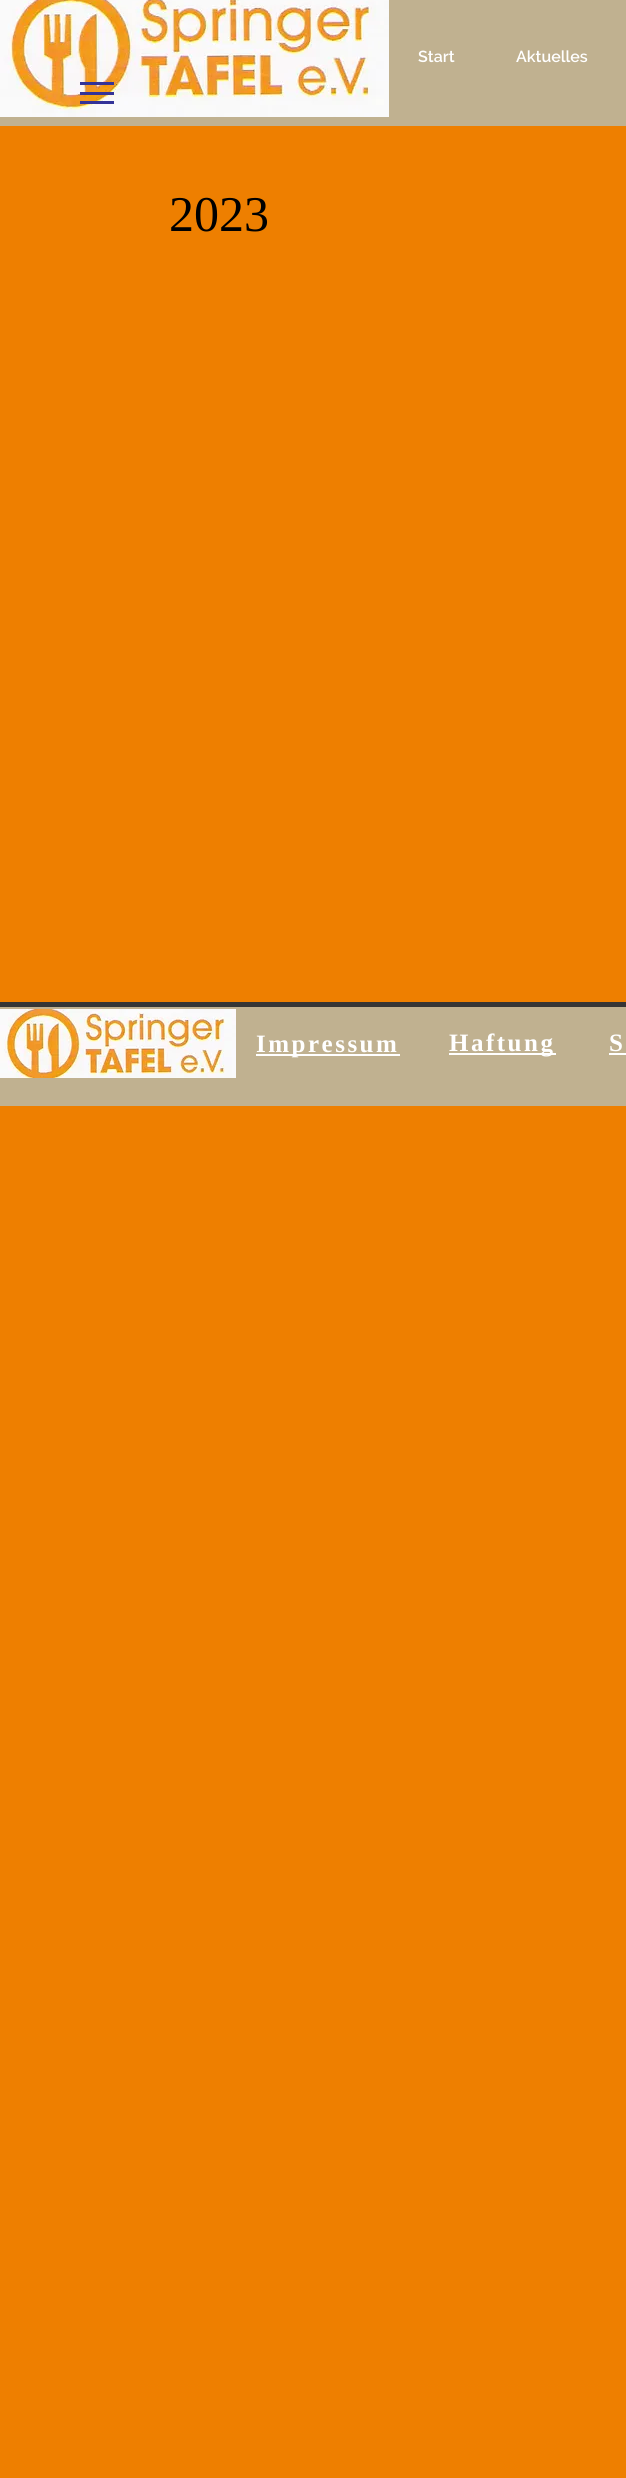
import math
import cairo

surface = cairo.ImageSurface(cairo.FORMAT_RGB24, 626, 2478)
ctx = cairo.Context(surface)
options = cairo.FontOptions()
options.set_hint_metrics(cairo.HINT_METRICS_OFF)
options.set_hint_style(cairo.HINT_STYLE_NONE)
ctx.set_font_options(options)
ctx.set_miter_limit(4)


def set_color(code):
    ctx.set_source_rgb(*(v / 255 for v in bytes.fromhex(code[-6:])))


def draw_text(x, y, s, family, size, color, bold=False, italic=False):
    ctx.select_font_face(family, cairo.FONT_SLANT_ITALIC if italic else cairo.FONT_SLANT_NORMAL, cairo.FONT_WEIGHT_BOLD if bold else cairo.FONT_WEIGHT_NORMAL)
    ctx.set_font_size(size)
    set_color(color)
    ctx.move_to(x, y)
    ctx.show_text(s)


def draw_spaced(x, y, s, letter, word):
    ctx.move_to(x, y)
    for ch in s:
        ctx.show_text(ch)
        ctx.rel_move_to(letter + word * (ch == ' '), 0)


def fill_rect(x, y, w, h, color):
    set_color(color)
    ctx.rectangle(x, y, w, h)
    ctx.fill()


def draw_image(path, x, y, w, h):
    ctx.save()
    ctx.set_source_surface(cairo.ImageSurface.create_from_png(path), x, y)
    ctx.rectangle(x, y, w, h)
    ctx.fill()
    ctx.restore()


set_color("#ee7f00")
ctx.paint()
fill_rect(0, 0, 626, 126, "#c0b190")
draw_image("assets/img1.png", 0, 0, 389, 117)
draw_text(418, 62, "Start", "Raleway SemiBold", 16, "#ffffff")
draw_text(516, 62, "Aktuelles", "Raleway SemiBold", 16, "#ffffff")
fill_rect(80, 101, 34, 3, "#333398")
fill_rect(80, 82, 34, 3, "#333398")
fill_rect(80, 92, 34, 3, "#333398")
draw_text(169, 231, "2023", "Liberation Serif", 50, "#000000")
fill_rect(0, 1007, 626, 99, "#c0b190")
fill_rect(0, 1002, 626, 5, "#353535")
draw_image("assets/img2.png", 0, 1009, 236, 69)
fill_rect(256, 1054, 144, 2, "#ffffff")
ctx.select_font_face("Liberation Serif", cairo.FONT_SLANT_NORMAL, cairo.FONT_WEIGHT_BOLD)
ctx.set_font_size(25)
draw_spaced(256, 1052, "Impressum", 2.5, 0)
fill_rect(449, 1053, 107, 2, "#ffffff")
draw_spaced(449, 1051, "Haftung", 2.5, 0)
draw_spaced(609, 1051, "S", 2.5, 0)
fill_rect(609, 1053, 17, 2, "#ffffff")
surface.write_to_png("output.png")
